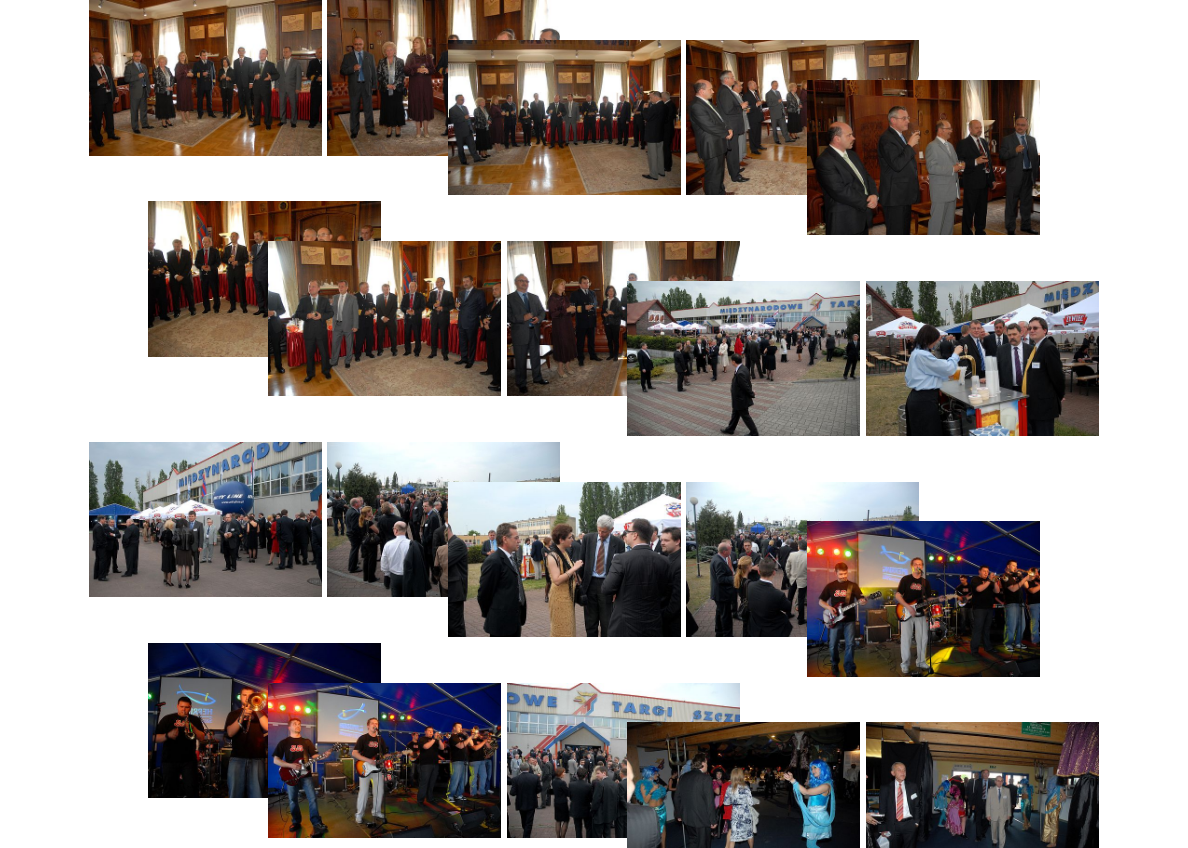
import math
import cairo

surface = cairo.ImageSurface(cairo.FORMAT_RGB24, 1188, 848)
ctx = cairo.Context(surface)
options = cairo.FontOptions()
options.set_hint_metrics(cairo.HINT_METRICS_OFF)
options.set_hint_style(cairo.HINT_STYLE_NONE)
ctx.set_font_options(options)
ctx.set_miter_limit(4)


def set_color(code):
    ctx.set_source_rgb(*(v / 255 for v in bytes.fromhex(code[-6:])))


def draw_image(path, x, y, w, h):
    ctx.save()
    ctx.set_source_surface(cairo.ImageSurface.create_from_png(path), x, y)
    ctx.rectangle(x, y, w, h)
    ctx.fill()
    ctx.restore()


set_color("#ffffff")
ctx.paint()
draw_image("assets/img1.png", 89, 0, 233, 156)
draw_image("assets/img2.png", 327, 0, 233, 156)
draw_image("assets/img3.png", 448, 40, 233, 155)
draw_image("assets/img4.png", 686, 40, 233, 155)
draw_image("assets/img5.png", 807, 80, 233, 155)
draw_image("assets/img6.png", 148, 201, 233, 156)
draw_image("assets/img7.png", 268, 241, 233, 155)
draw_image("assets/img8.png", 507, 241, 233, 155)
draw_image("assets/img9.png", 627, 281, 233, 155)
draw_image("assets/img10.png", 866, 281, 233, 155)
draw_image("assets/img11.png", 89, 442, 233, 155)
draw_image("assets/img12.png", 327, 442, 233, 155)
draw_image("assets/img13.png", 448, 482, 233, 155)
draw_image("assets/img14.png", 686, 482, 233, 155)
draw_image("assets/img15.png", 807, 521, 233, 156)
draw_image("assets/img16.png", 148, 643, 233, 155)
draw_image("assets/img17.png", 268, 683, 233, 155)
draw_image("assets/img18.png", 507, 683, 233, 155)
draw_image("assets/img19.png", 627, 722, 233, 126)
draw_image("assets/img20.png", 866, 722, 233, 126)
surface.write_to_png("output.png")
